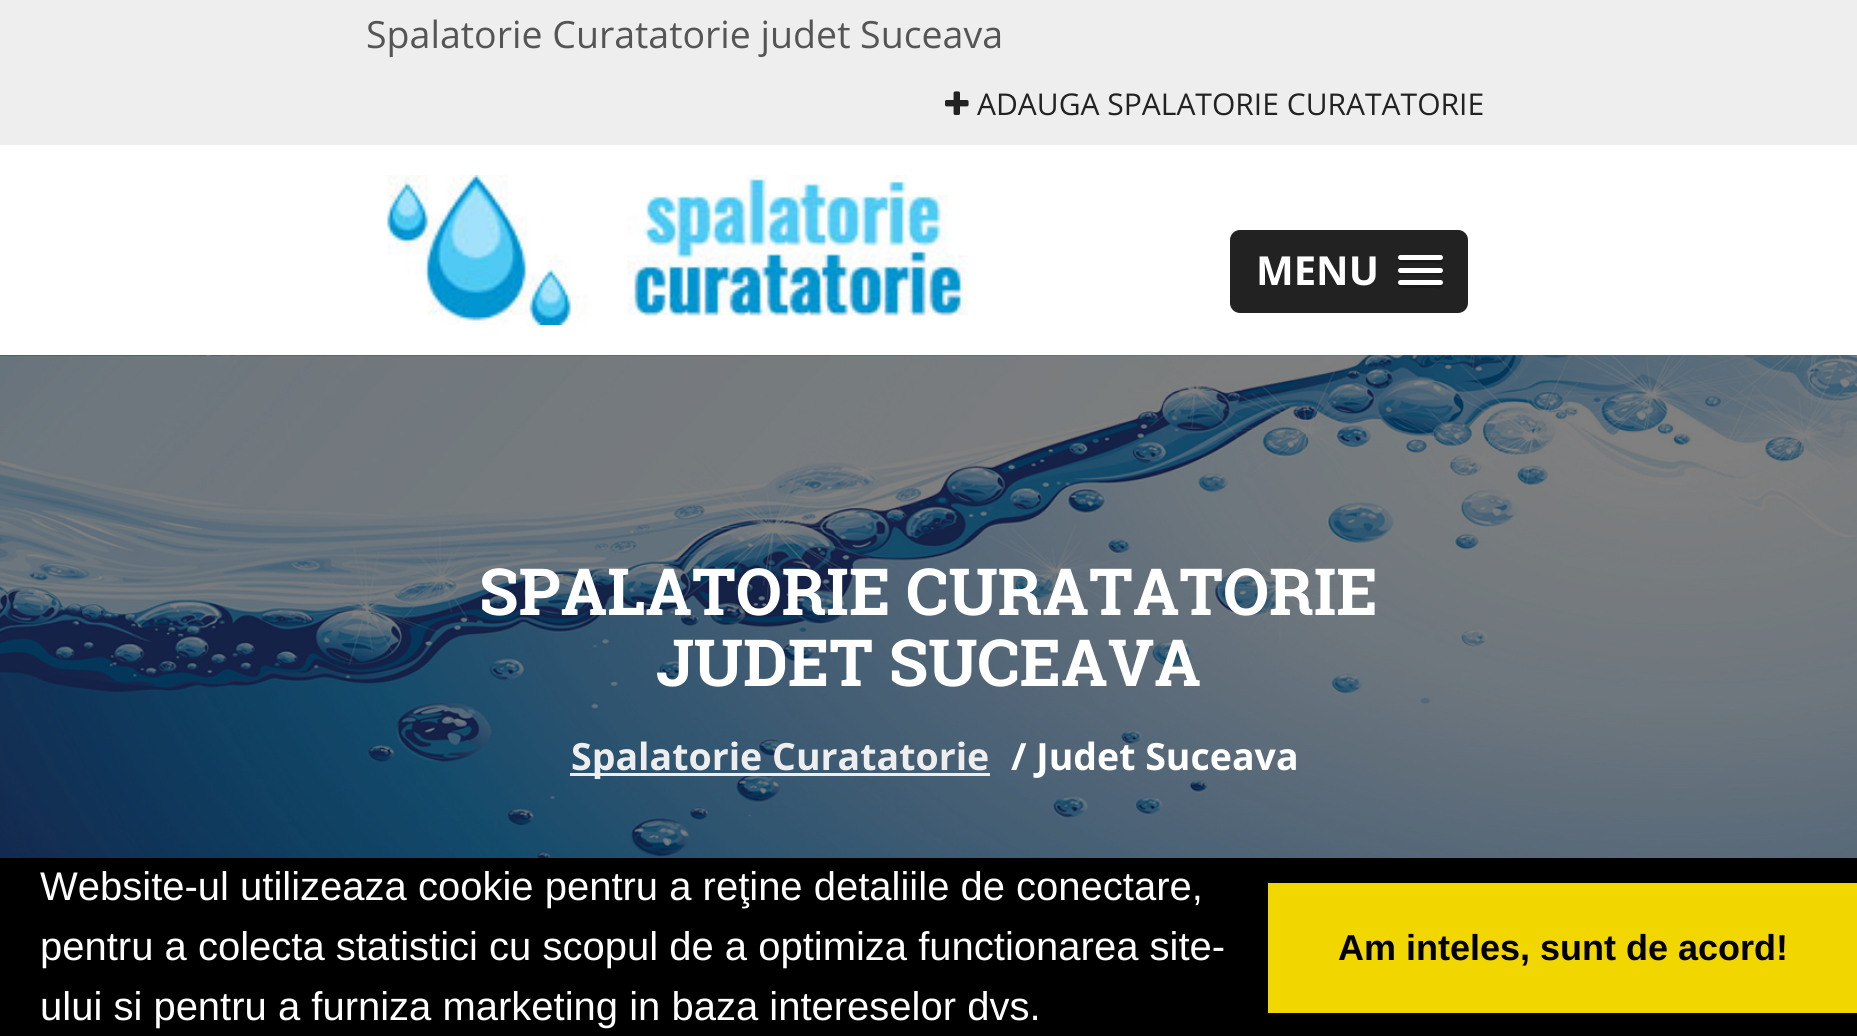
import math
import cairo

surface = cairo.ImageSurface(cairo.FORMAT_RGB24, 1857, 1036)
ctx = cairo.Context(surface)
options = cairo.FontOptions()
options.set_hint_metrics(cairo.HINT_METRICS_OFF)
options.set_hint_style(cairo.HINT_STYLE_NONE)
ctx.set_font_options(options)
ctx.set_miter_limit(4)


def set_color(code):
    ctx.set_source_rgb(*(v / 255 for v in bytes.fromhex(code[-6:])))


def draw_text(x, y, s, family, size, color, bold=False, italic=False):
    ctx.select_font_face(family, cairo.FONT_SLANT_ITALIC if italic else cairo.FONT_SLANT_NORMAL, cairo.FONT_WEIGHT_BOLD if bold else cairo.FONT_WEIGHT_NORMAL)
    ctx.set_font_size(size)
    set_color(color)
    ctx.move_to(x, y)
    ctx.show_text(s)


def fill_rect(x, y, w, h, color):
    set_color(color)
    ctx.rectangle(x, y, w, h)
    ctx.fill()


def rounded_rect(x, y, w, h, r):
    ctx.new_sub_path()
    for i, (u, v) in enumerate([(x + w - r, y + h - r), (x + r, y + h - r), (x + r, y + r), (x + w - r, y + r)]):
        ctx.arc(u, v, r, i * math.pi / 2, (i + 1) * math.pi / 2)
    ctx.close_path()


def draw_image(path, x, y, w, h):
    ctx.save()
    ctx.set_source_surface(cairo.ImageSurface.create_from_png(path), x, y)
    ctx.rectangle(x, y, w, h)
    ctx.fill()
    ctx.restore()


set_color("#ffffff")
ctx.paint()
fill_rect(0, 0, 1857, 145, "#eeeeee")
draw_text(366, 48, "Spalatorie Curatatorie judet Suceava", "Open Sans", 37.5, "#555555")
draw_image("assets/img1.png", 945, 91, 24, 24)
draw_text(977, 115, "ADAUGA SPALATORIE CURATATORIE", "Open Sans", 30, "#222222")
draw_image("assets/img2.png", 386, 175, 582, 150)
rounded_rect(1230, 230, 238, 83, 10)
ctx.fill()
draw_text(1256, 285, "MENU", "Open Sans", 40, "#ffffff", bold=True)
set_color("#1a1a1a")
ctx.new_path()
ctx.move_to(1398, 259)
ctx.curve_to(1396, 264, 1407, 263, 1407, 263)
ctx.line_to(1434, 263)
ctx.curve_to(1435, 263, 1442, 265, 1443, 261)
ctx.line_to(1442, 259)
ctx.line_to(1440, 260)
ctx.curve_to(1437, 260, 1400, 261, 1398, 259)
ctx.close_path()
ctx.fill()
set_color("#ffffff")
rounded_rect(1398, 255, 45, 5, 2.5)
ctx.fill()
set_color("#1a1a1a")
ctx.new_path()
ctx.move_to(1398, 272)
ctx.curve_to(1396, 277, 1406, 275, 1407, 275)
ctx.line_to(1434, 275)
ctx.curve_to(1435, 275, 1442, 277, 1443, 273)
ctx.line_to(1442, 271)
ctx.line_to(1440, 272)
ctx.line_to(1400, 272)
ctx.close_path()
ctx.fill()
set_color("#ffffff")
rounded_rect(1398, 268, 45, 5, 2.5)
ctx.fill()
set_color("#1a1a1a")
ctx.new_path()
ctx.move_to(1398, 284)
ctx.curve_to(1396, 289, 1407, 288, 1407, 288)
ctx.line_to(1434, 288)
ctx.curve_to(1435, 288, 1442, 290, 1443, 286)
ctx.line_to(1442, 284)
ctx.line_to(1440, 285)
ctx.curve_to(1437, 285, 1400, 286, 1398, 284)
ctx.close_path()
ctx.fill()
set_color("#ffffff")
rounded_rect(1398, 280, 45, 5, 2.5)
ctx.fill()
draw_image("assets/img3.png", 0, 355, 1857, 503)
draw_text(479, 615, "SPALATORIE CURATATORIE", "Roboto Slab", 65, "#ffffff", bold=True)
draw_text(656, 686, "JUDET SUCEAVA", "Roboto Slab", 65, "#ffffff", bold=True)
fill_rect(570, 773, 420, 3, "#eeeeee")
draw_text(571, 770, "Spalatorie Curatatorie", "Open Sans", 37.5, "#eeeeee", bold=True)
draw_text(1011, 770, "/ Judet Suceava", "Open Sans", 37.5, "#ffffff", bold=True)
fill_rect(0, 858, 1857, 178, "#000000")
draw_text(40, 900, "Website-ul utilizeaza cookie pentru a reţine detaliile de conectare,", "Liberation Sans", 40, "#ffffff")
draw_text(40, 960, "pentru a colecta statistici cu scopul de a optimiza functionarea site-", "Liberation Sans", 40, "#ffffff")
draw_text(40, 1020, "ului si pentru a furniza marketing in baza intereselor dvs.", "Liberation Sans", 40, "#ffffff")
fill_rect(1268, 883, 589, 130, "#f1d600")
draw_text(1338, 960, "Am inteles, sunt de acord!", "Liberation Sans", 36, "#000000", bold=True)
surface.write_to_png("output.png")
